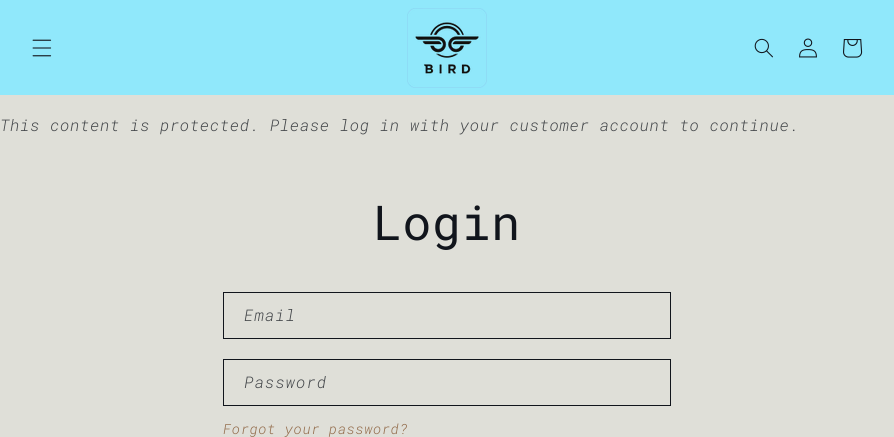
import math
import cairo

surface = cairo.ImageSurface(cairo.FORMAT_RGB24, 894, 437)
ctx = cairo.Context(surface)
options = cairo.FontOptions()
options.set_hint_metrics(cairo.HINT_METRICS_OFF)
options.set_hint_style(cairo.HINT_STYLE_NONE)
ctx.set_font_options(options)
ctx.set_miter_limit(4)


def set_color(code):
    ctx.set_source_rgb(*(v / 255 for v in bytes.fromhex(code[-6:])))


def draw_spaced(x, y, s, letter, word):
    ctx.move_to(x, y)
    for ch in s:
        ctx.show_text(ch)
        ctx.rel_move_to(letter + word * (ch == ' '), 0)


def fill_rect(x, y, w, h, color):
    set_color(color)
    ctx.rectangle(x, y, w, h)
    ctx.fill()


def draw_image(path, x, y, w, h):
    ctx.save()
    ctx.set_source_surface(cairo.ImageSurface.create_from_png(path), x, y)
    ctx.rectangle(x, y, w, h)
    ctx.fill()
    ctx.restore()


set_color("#dfdfd8")
ctx.paint()
fill_rect(0, 0, 894, 95, "#90e8fb")
draw_image("assets/img1.png", 32, 39, 20, 18)
draw_image("assets/img2.png", 407, 8, 80, 80)
draw_image("assets/img3.png", 754, 38, 19, 20)
draw_image("assets/img4.png", 799, 38, 18, 20)
draw_image("assets/img5.png", 843, 39, 20, 19)
ctx.select_font_face("Roboto Mono Light", cairo.FONT_SLANT_ITALIC)
ctx.set_font_size(16)
set_color("#45484b")
draw_spaced(0, 131, "This content is protected. Please log in with your customer account to continue.", 0.6, 0)
ctx.select_font_face("Roboto Mono")
ctx.set_font_size(48)
set_color("#11151c")
draw_spaced(373, 240, "Login", 0.75, 0)
ctx.rectangle(223.5, 292.5, 447, 46)
ctx.set_line_width(1)
ctx.stroke()
ctx.select_font_face("Roboto Mono Light", cairo.FONT_SLANT_ITALIC)
ctx.set_font_size(16)
set_color("#45484b")
draw_spaced(244, 321, "Email", 1, 0)
ctx.rectangle(223.5, 359.5, 447, 46)
set_color("#11151c")
ctx.stroke()
set_color("#45484b")
draw_spaced(244, 388, "Password", 1, 0)
ctx.set_font_size(14)
set_color("#936c4b")
draw_spaced(223, 434, "Forgot your password?", 0.6, 0)
surface.write_to_png("output.png")
